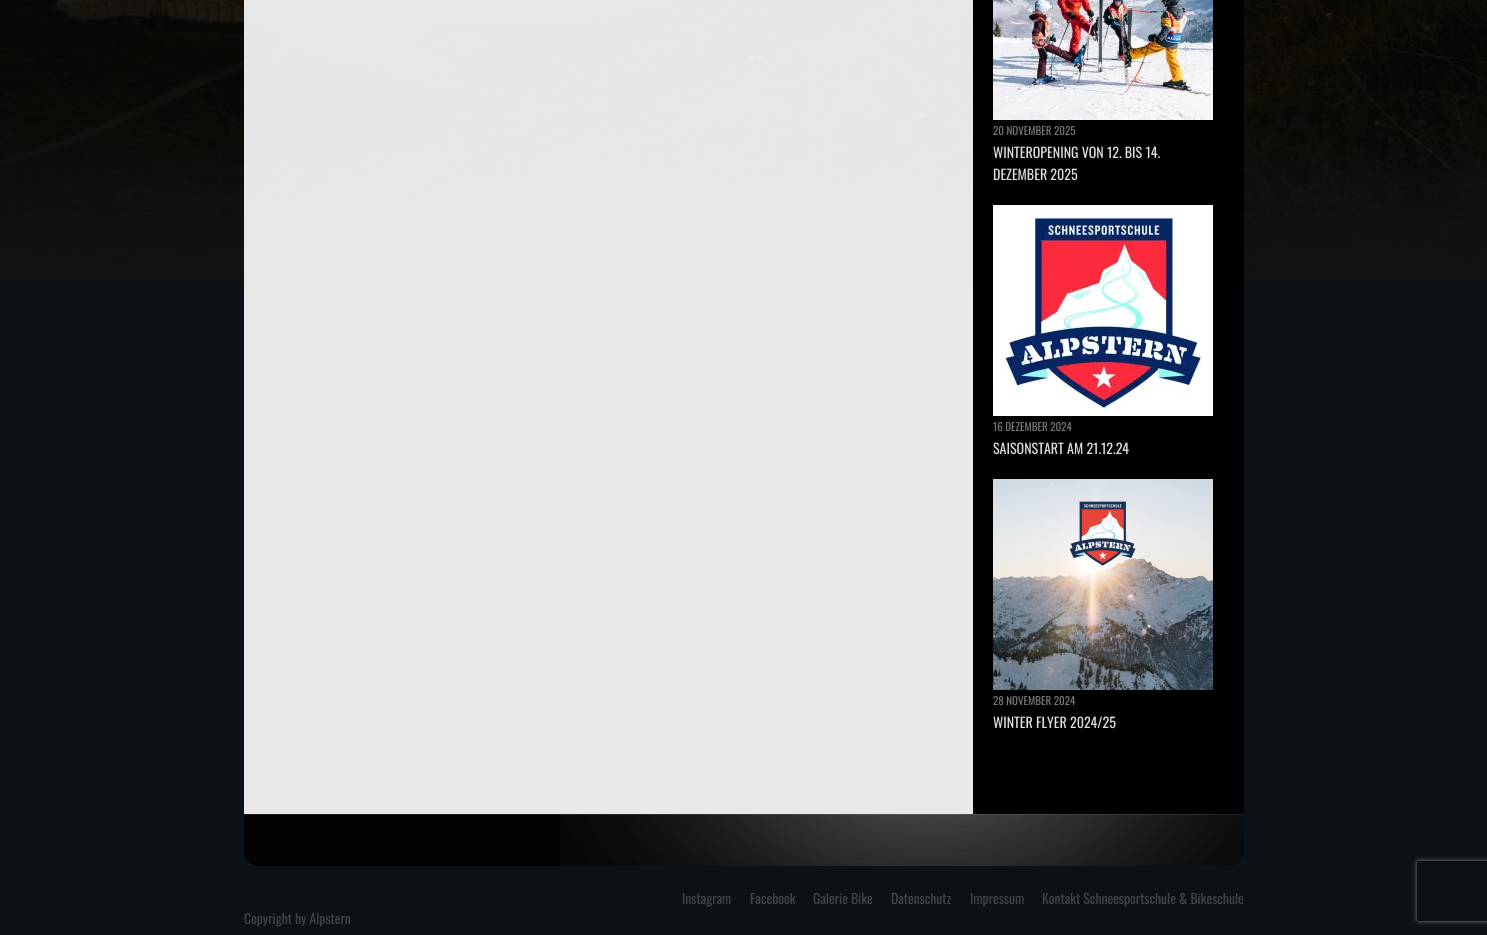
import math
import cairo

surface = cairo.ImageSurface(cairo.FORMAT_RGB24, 1487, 935)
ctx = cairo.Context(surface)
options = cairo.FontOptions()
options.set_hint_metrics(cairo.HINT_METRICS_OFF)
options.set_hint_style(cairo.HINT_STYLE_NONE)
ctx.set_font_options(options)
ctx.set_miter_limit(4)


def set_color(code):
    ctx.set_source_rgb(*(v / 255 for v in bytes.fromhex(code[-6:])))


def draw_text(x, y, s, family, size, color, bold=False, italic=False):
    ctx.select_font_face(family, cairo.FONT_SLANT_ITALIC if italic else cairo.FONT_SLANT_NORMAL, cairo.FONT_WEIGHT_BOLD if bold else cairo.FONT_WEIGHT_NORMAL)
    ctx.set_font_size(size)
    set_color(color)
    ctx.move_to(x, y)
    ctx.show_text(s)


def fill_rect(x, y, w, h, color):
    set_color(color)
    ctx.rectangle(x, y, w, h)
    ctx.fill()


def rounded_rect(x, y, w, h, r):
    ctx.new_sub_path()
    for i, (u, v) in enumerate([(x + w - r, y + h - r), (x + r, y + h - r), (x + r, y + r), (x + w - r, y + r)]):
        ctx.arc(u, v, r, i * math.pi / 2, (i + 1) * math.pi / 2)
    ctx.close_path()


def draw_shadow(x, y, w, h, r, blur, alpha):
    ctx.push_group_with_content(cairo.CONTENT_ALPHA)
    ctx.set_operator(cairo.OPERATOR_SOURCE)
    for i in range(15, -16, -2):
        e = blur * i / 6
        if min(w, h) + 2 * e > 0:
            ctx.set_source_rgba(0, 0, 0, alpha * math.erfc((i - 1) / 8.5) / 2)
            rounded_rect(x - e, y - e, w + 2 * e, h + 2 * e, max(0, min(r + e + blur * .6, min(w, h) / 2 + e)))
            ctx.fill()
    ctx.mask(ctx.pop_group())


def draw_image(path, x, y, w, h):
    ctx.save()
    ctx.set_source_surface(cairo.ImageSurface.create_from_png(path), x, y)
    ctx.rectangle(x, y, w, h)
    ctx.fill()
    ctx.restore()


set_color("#0c1116")
ctx.paint()
draw_image("assets/img1.png", 0, 0, 1487, 282)
ctx.set_source_rgba(1, 1, 1, 0.9)
ctx.rectangle(244, 0, 729, 814)
ctx.fill()
fill_rect(973, 0, 271, 814, "#000000")
draw_image("assets/img2.png", 993, 0, 220, 120)
draw_text(993, 135, "20 NOVEMBER 2025", "Oswald", 11, "#797979")
draw_text(993, 158, "WINTEROPENING VON 12. BIS 14.", "Oswald", 14, "#dedede")
draw_text(993, 180, "DEZEMBER 2025", "Oswald", 14, "#dedede")
draw_image("assets/img3.png", 993, 205, 220, 211)
draw_text(993, 431, "16 DEZEMBER 2024", "Oswald", 11, "#797979")
draw_text(993, 454, "SAISONSTART AM 21.12.24", "Oswald", 14, "#dedede")
draw_image("assets/img4.png", 993, 479, 220, 211)
draw_text(993, 705, "28 NOVEMBER 2024", "Oswald", 11, "#797979")
draw_text(993, 728, "WINTER FLYER 2024/25", "Oswald", 14, "#dedede")
set_color("#030303")
ctx.new_path()
ctx.move_to(244, 814)
ctx.line_to(1244, 814)
ctx.line_to(1244, 851)
ctx.curve_to(1244, 859.5, 1237.5, 866, 1229, 866)
ctx.line_to(259, 866)
ctx.curve_to(250.5, 866, 244, 859.5, 244, 851)
ctx.close_path()
ctx.fill()
draw_image("assets/img5.png", 559, 814, 685, 52)
ctx.set_source_rgba(1, 1, 1, 0.1)
ctx.rectangle(244, 814, 1000, 1)
ctx.fill()
draw_text(682, 904, "Instagram", "Oswald", 13.6, "#414549")
draw_text(750, 904, "Facebook", "Oswald", 13.6, "#414549")
draw_text(813, 904, "Galerie Bike", "Oswald", 13.6, "#414549")
draw_text(891, 904, "Datenschutz", "Oswald", 13.6, "#414549")
draw_text(970, 904, "Impressum", "Oswald", 13.6, "#414549")
draw_text(1042, 904, "Kontakt Schneesportschule & Bikeschule", "Oswald", 13.6, "#414549")
draw_text(244, 924, "Copyright by Alpstern", "Oswald", 13.6, "#414549")
ctx.save()
ctx.set_fill_rule(cairo.FILL_RULE_EVEN_ODD)
ctx.new_path()
ctx.move_to(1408, 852)
ctx.line_to(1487, 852)
ctx.line_to(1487, 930)
ctx.line_to(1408, 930)
ctx.close_path()
ctx.move_to(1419, 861)
ctx.line_to(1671, 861)
ctx.curve_to(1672, 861, 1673, 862, 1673, 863)
ctx.line_to(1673, 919)
ctx.curve_to(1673, 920, 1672, 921, 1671, 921)
ctx.line_to(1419, 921)
ctx.curve_to(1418, 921, 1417, 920, 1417, 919)
ctx.line_to(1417, 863)
ctx.curve_to(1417, 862, 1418, 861, 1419, 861)
ctx.close_path()
ctx.clip()
set_color("#808080")
draw_shadow(1417, 861, 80, 60, 2, 2.5, 1)
ctx.restore()
surface.write_to_png("output.png")
